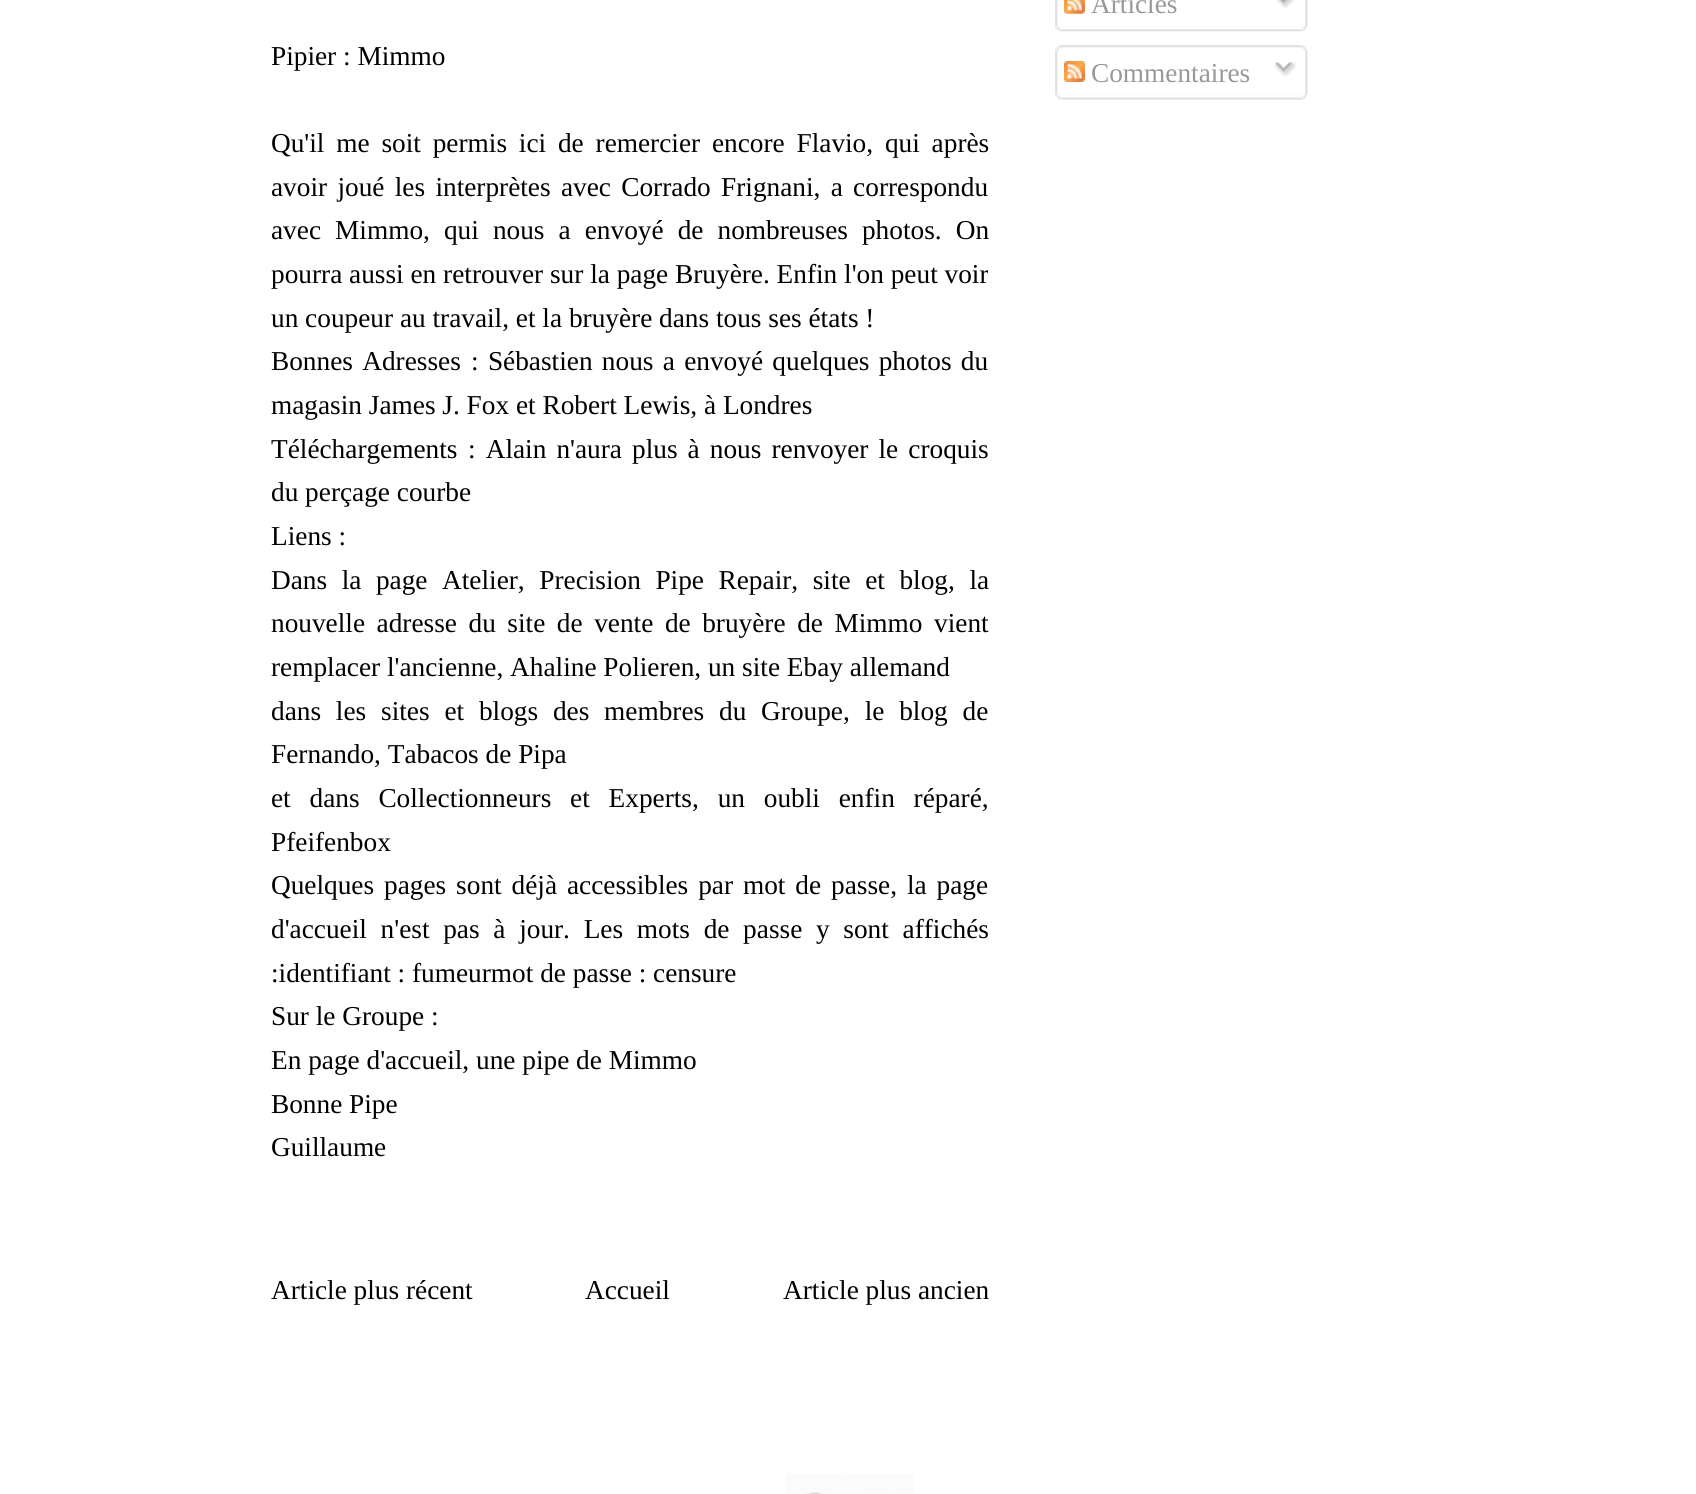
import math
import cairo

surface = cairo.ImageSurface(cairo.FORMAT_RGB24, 1696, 1494)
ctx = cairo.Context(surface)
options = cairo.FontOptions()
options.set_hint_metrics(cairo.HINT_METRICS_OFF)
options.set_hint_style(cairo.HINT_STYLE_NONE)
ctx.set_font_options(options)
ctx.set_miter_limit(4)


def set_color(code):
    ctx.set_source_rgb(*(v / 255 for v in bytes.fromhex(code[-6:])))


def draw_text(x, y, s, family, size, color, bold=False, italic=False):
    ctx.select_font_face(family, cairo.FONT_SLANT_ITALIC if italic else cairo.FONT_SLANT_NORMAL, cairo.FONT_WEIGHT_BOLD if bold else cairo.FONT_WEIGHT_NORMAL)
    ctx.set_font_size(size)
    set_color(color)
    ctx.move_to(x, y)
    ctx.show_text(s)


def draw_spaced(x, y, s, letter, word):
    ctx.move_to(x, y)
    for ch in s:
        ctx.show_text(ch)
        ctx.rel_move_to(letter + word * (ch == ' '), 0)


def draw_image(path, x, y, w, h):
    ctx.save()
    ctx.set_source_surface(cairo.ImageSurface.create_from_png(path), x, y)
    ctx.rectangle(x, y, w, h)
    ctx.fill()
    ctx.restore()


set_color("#ffffff")
ctx.paint()
draw_text(271, 65, "Pipier : Mimmo", "Liberation Serif", 27.3, "#000000")
draw_spaced(271, 152, "Qu'il me soit permis ici de remercier encore Flavio, qui après", 0, 5)
draw_spaced(271, 196, "avoir joué les interprètes avec Corrado Frignani, a correspondu", 0, 3.5)
draw_spaced(271, 239, "avec Mimmo, qui nous a envoyé de nombreuses photos. On", 0, 7.25)
draw_text(271, 283, "pourra aussi en retrouver sur la page Bruyère. Enfin l'on peut voir", "Liberation Serif", 27.3, "#000000")
draw_text(271, 327, "un coupeur au travail, et la bruyère dans tous ses états !", "Liberation Serif", 27.3, "#000000")
draw_spaced(271, 370, "Bonnes Adresses", 0, 2.5)
draw_spaced(471, 370, ": Sébastien nous a envoyé quelques photos du", 0, 2.5)
draw_text(271, 414, "magasin James J. Fox et Robert Lewis, à Londres", "Liberation Serif", 27.3, "#000000")
draw_text(271, 458, "Téléchargements", "Liberation Serif", 27.3, "#000000")
draw_spaced(468, 458, ": Alain n'aura plus à nous renvoyer le croquis", 0, 3.25)
draw_text(271, 501, "du perçage courbe", "Liberation Serif", 27.3, "#000000")
draw_text(271, 545, "Liens :", "Liberation Serif", 27.3, "#000000")
draw_spaced(271, 589, "Dans la page Atelier, Precision Pipe Repair, site et blog, la", 0, 7.75)
draw_spaced(271, 632, "nouvelle adresse du site de vente de bruyère de Mimmo vient", 0, 4.75)
draw_text(271, 676, "remplacer l'ancienne, Ahaline Polieren, un site Ebay allemand", "Liberation Serif", 27.3, "#000000")
draw_spaced(271, 720, "dans les sites et blogs des membres du Groupe, le blog de", 0, 8)
draw_text(271, 763, "Fernando, Tabacos de Pipa", "Liberation Serif", 27.3, "#000000")
draw_spaced(271, 807, "et dans Collectionneurs et Experts, un oubli enfin réparé,", 0, 12)
draw_text(271, 851, "Pfeifenbox", "Liberation Serif", 27.3, "#000000")
draw_spaced(271, 894, "Quelques pages sont déjà accessibles par mot de passe, la page", 0, 3.1)
draw_spaced(271, 938, "d'accueil n'est pas à jour. Les mots de passe y sont affichés", 0, 6.9)
draw_text(271, 982, ":identifiant : fumeurmot de passe : censure", "Liberation Serif", 27.3, "#000000")
draw_text(271, 1025, "Sur le Groupe :", "Liberation Serif", 27.3, "#000000")
draw_text(271, 1069, "En page d'accueil, une pipe de Mimmo", "Liberation Serif", 27.3, "#000000")
draw_text(271, 1113, "Bonne Pipe", "Liberation Serif", 27.3, "#000000")
draw_text(271, 1156, "Guillaume", "Liberation Serif", 27.3, "#000000")
draw_text(271, 1299, "Article plus récent", "Liberation Serif", 27.3, "#000000")
draw_text(585, 1299, "Accueil", "Liberation Serif", 27.3, "#000000")
draw_text(783, 1299, "Article plus ancien", "Liberation Serif", 27.3, "#000000")
draw_image("assets/img1.png", 1055, 0, 253, 26)
draw_image("assets/img2.png", 1064, 0, 21, 14)
draw_text(1091, 13, "Articles", "Liberation Serif", 27.3, "#999999")
draw_image("assets/img3.png", 1276, 0, 19, 9)
draw_image("assets/img4.png", 1055, 26, 252, 6)
draw_image("assets/img5.png", 1055, 45, 253, 50)
draw_image("assets/img6.png", 1064, 61, 21, 21)
draw_text(1091, 82, "Commentaires", "Liberation Serif", 27.3, "#999999")
draw_image("assets/img7.png", 1274, 61, 23, 16)
draw_image("assets/img8.png", 1055, 94, 252, 6)
draw_image("assets/img9.png", 785, 1474, 129, 20)
surface.write_to_png("output.png")
